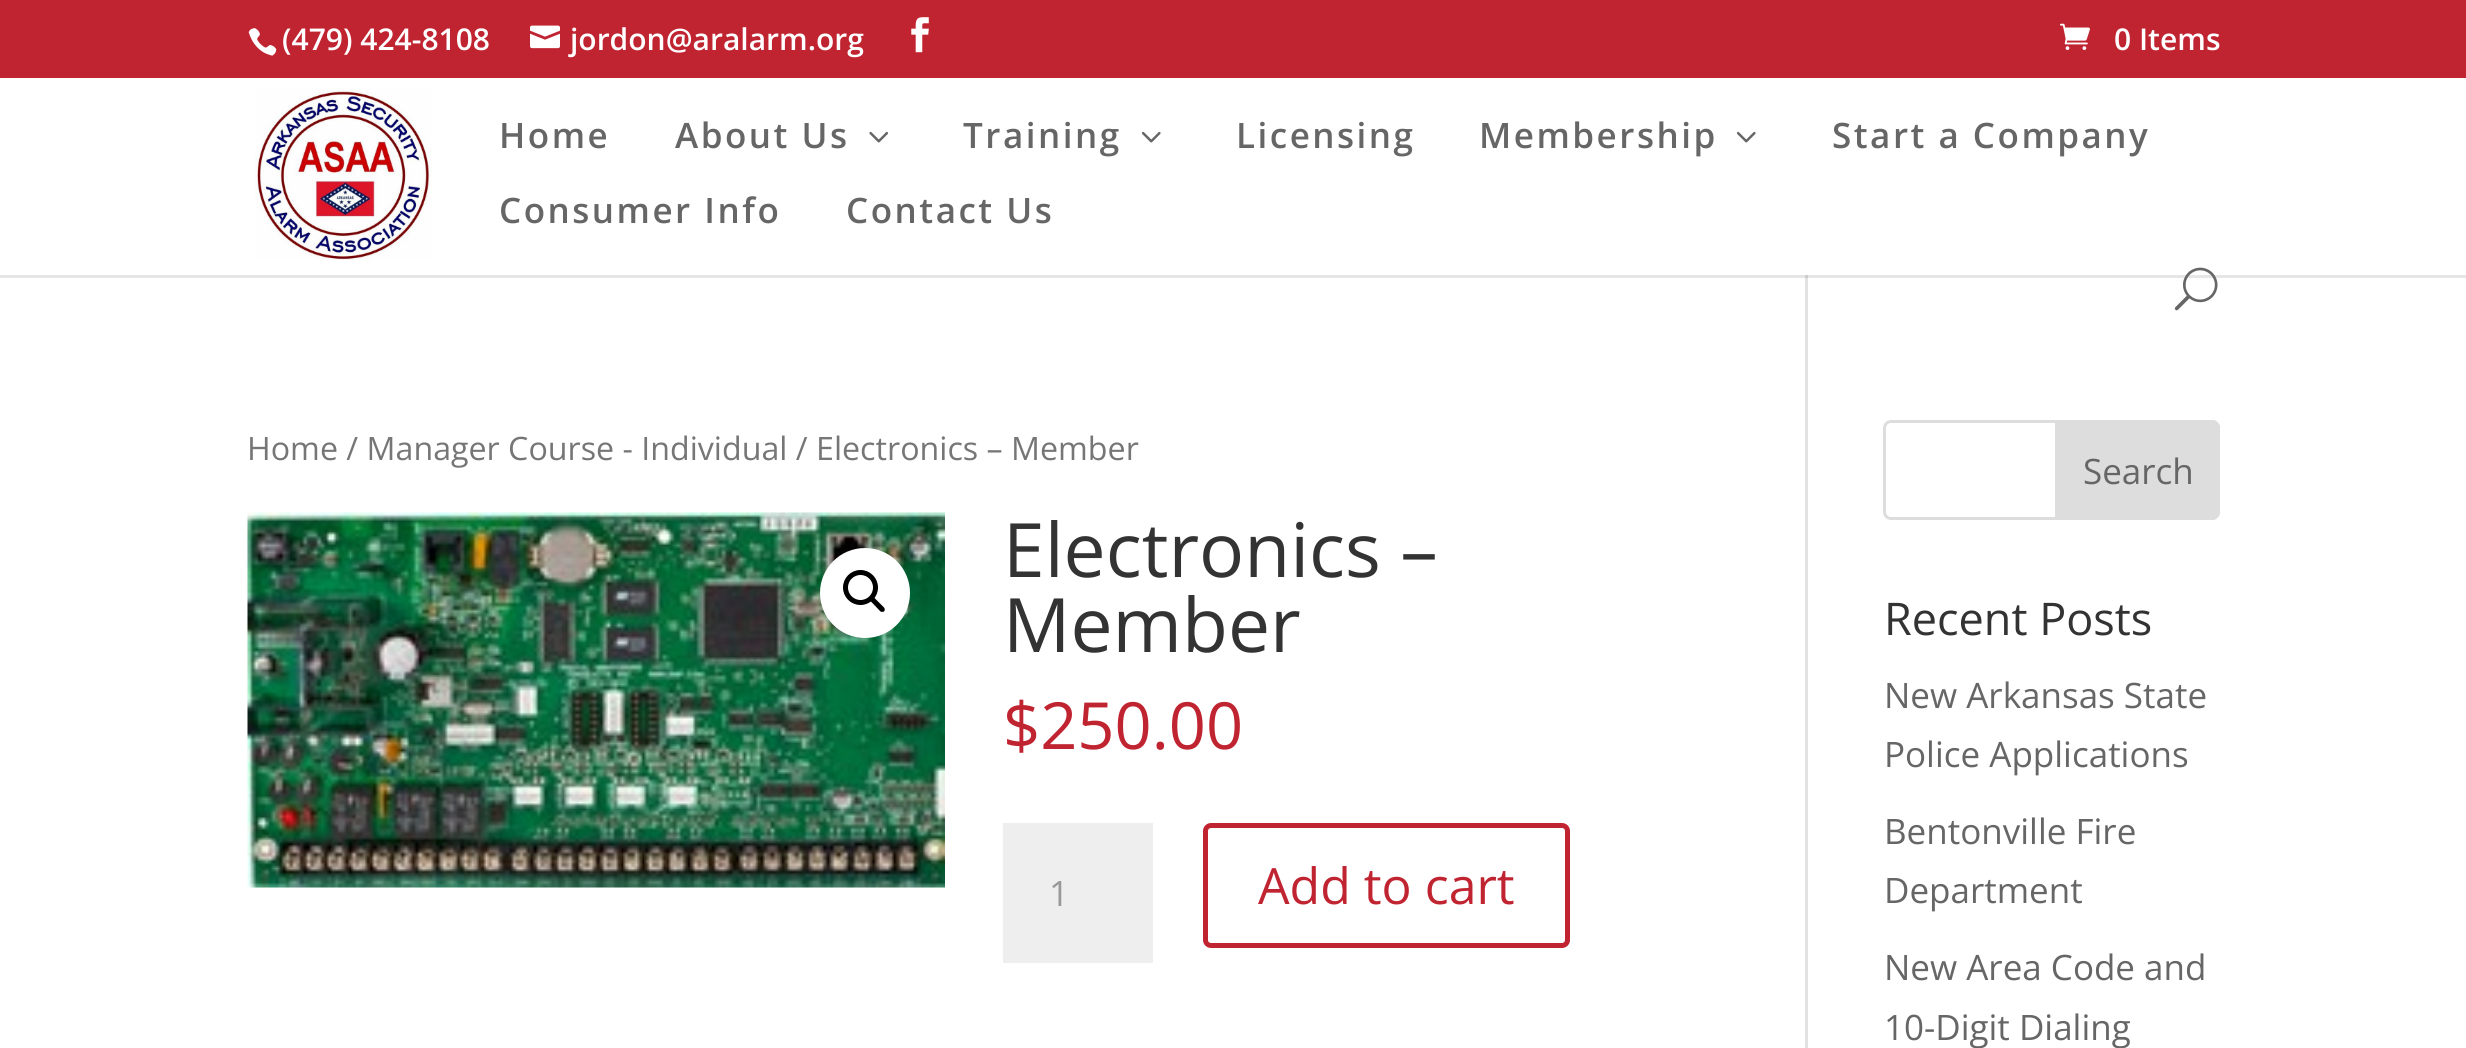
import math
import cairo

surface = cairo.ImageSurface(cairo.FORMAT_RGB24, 2466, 1048)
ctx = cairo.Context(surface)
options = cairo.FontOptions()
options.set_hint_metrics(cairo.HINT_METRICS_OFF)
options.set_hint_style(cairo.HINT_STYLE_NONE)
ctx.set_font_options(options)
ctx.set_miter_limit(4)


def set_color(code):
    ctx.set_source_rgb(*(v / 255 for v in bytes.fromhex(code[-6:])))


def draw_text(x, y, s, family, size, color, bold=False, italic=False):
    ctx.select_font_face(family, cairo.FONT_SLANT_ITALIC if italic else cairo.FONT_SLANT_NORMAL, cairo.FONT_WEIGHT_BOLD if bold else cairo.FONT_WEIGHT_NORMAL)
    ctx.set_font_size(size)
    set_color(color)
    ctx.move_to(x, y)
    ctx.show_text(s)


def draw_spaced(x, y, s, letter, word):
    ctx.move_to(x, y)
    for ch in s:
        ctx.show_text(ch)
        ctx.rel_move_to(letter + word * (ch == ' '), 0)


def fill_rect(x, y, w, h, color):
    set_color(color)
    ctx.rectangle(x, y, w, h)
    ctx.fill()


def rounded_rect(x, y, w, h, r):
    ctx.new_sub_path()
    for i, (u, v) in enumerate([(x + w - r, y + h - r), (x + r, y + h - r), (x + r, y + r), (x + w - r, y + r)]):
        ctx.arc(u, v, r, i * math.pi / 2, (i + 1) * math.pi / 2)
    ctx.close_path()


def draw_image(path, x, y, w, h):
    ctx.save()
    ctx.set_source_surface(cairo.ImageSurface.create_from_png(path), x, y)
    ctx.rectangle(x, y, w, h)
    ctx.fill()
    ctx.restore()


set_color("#ffffff")
ctx.paint()
fill_rect(0, 0, 2466, 78, "#c12431")
draw_image("assets/img1.png", 248, 28, 29, 28)
draw_text(282, 50, "(479) 424-8108", "Open Sans SemiBold", 30, "#ffffff")
draw_image("assets/img2.png", 530, 25, 30, 24)
draw_text(570, 50, "jordon@aralarm.org", "Open Sans SemiBold", 30, "#ffffff")
draw_image("assets/img3.png", 911, 17, 18, 36)
draw_image("assets/img4.png", 2060, 23, 30, 27)
draw_text(2114, 50, "0 Items", "Open Sans SemiBold", 30, "#ffffff")
fill_rect(1805, 275, 3, 773, "#e2e2e2")
ctx.set_source_rgba(0, 0, 0, 0.1)
ctx.new_path()
ctx.move_to(0, 275)
ctx.line_to(0, 278)
ctx.line_to(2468, 278)
ctx.line_to(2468, 80)
ctx.line_to(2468, 275)
ctx.close_path()
ctx.fill()
draw_image("assets/img5.png", 255, 88, 178, 172)
ctx.set_font_size(35)
set_color("#666666")
draw_spaced(499, 148, "Home", 2.5, 0)
draw_spaced(675, 148, "About Us", 2.5, 0)
draw_image("assets/img6.png", 869, 131, 20, 12)
draw_spaced(963, 148, "Training", 2.5, 0)
draw_image("assets/img7.png", 1141, 131, 20, 12)
draw_spaced(1236, 148, "Licensing", 2.5, 0)
draw_spaced(1479, 148, "Membership", 2.5, 0)
draw_image("assets/img7.png", 1736, 131, 20, 12)
draw_spaced(1832, 148, "Start a Company", 2.5, 0)
draw_spaced(499, 223, "Consumer Info", 2.5, 0)
draw_spaced(846, 223, "Contact Us", 2.5, 0)
draw_image("assets/img8.png", 2174, 267, 44, 44)
draw_text(247, 460, "Home / Manager Course - Individual / Electronics – Member", "Open Sans", 32.2, "#767676")
draw_image("assets/img9.png", 247, 512, 698, 376)
set_color("#ffffff")
ctx.arc(865, 593, 45, 0, 2 * math.pi)
ctx.fill()
ctx.arc(860.5, 587.5, 15, 0, 2 * math.pi)
set_color("#000000")
ctx.set_line_width(5)
ctx.stroke()
ctx.new_path()
ctx.move_to(870, 597)
ctx.curve_to(870.5, 596, 872.5, 596, 873.5, 597)
ctx.line_to(884, 607.5)
ctx.curve_to(885, 608.5, 885, 610.5, 884, 611.5)
ctx.curve_to(883, 612, 881.5, 612, 880.5, 611.5)
ctx.line_to(870, 600.5)
ctx.curve_to(869, 599.5, 869, 598, 870, 597)
ctx.close_path()
ctx.fill()
draw_text(1003, 577, "Electronics –", "Open Sans", 75, "#333333")
draw_text(1003, 652, "Member", "Open Sans", 75, "#333333")
draw_text(1003, 749, "$250.00", "Open Sans", 65, "#c12431")
fill_rect(1003, 823, 150, 140, "#eeeeee")
draw_text(1049, 906, "1", "Open Sans", 35, "#999999")
rounded_rect(1205.5, 825.5, 362, 120, 5.5)
set_color("#c12431")
ctx.stroke()
draw_text(1258, 904, "Add to cart", "Open Sans", 50, "#c12431")
rounded_rect(1884.5, 421.5, 334, 97, 6.5)
set_color("#dddddd")
ctx.set_line_width(3)
ctx.stroke()
ctx.new_path()
ctx.move_to(2056.5, 421.5)
ctx.line_to(2212, 421.5)
ctx.curve_to(2215.5, 421.5, 2218.5, 424.5, 2218.5, 428)
ctx.line_to(2218.5, 512)
ctx.curve_to(2218.5, 515.5, 2215.5, 518.5, 2212, 518.5)
ctx.line_to(2056.5, 518.5)
ctx.close_path()
ctx.fill_preserve()
ctx.stroke()
draw_text(2083, 484, "Search", "Open Sans", 35, "#666666")
draw_text(1884, 635, "Recent Posts", "Open Sans", 45, "#333333")
draw_text(1884, 708, "New Arkansas State", "Open Sans", 35, "#666666")
draw_text(1884, 767, "Police Applications", "Open Sans", 35, "#666666")
draw_text(1884, 844, "Bentonville Fire", "Open Sans", 35, "#666666")
draw_text(1884, 903, "Department", "Open Sans", 35, "#666666")
draw_text(1884, 980, "New Area Code and", "Open Sans", 35, "#666666")
draw_text(1884, 1040, "10-Digit Dialing", "Open Sans", 35, "#666666")
surface.write_to_png("output.png")
